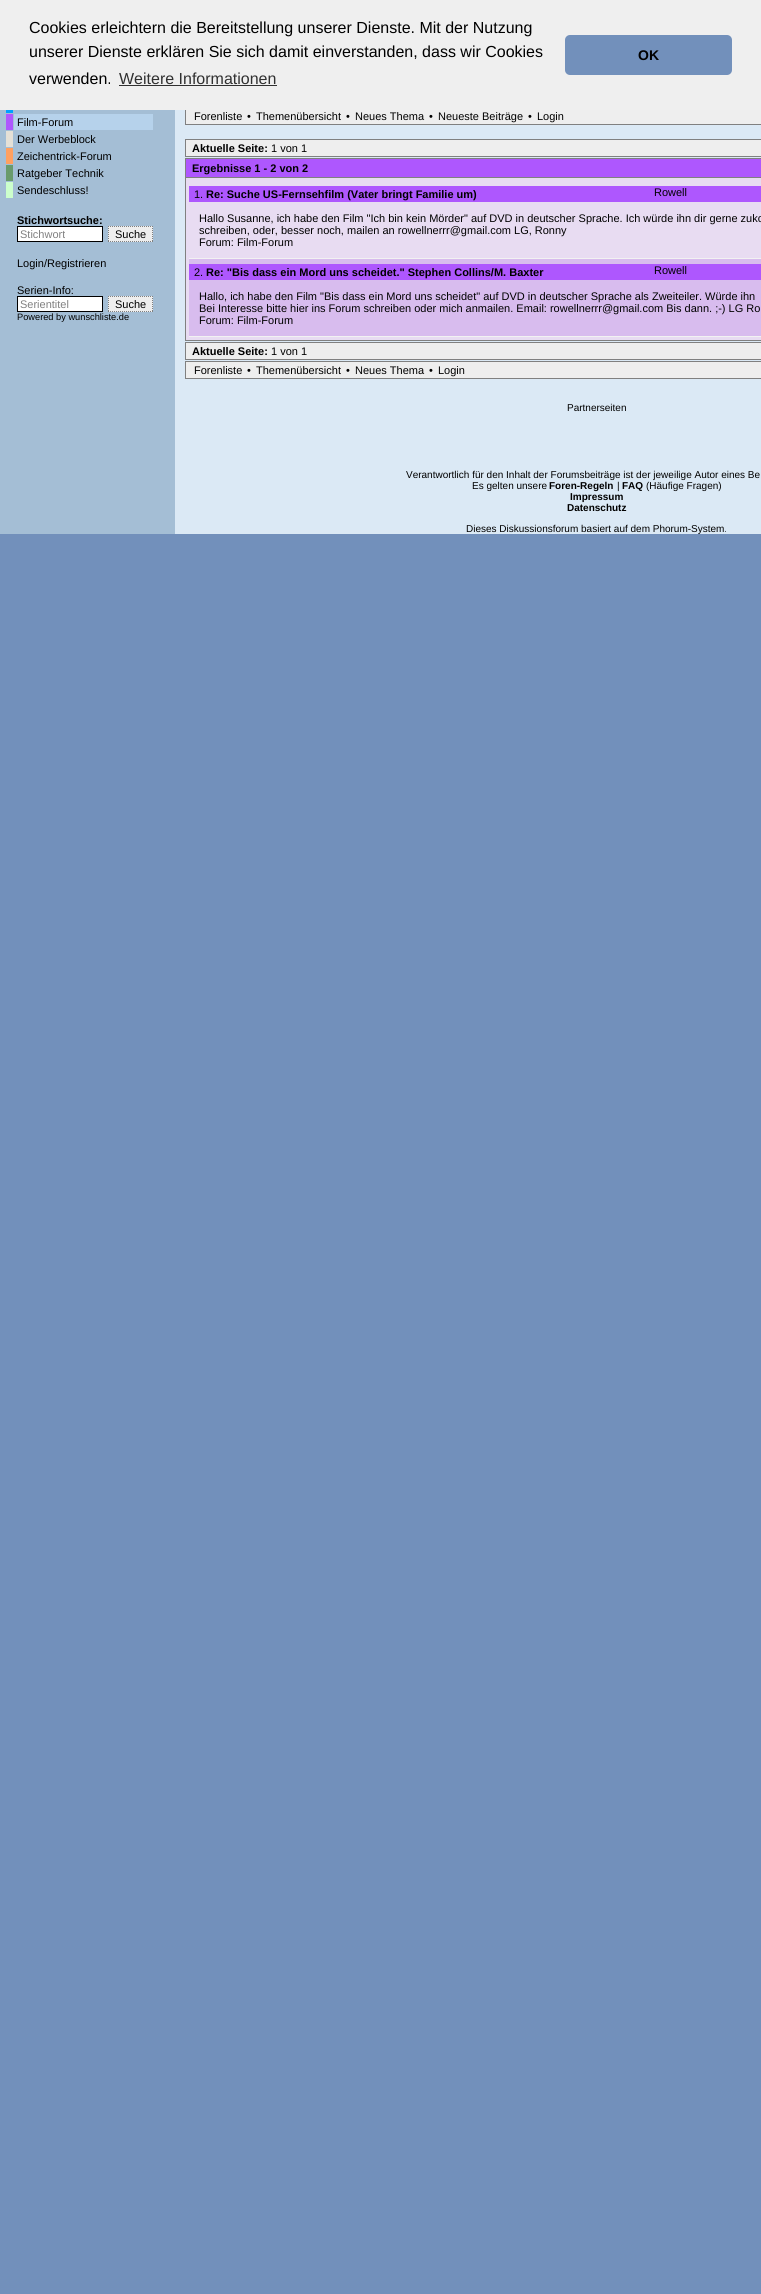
import math
import cairo

surface = cairo.ImageSurface(cairo.FORMAT_RGB24, 761, 2294)
ctx = cairo.Context(surface)
options = cairo.FontOptions()
options.set_hint_metrics(cairo.HINT_METRICS_OFF)
options.set_hint_style(cairo.HINT_STYLE_NONE)
ctx.set_font_options(options)
ctx.set_miter_limit(4)


def set_color(code):
    ctx.set_source_rgb(*(v / 255 for v in bytes.fromhex(code[-6:])))


def draw_text(x, y, s, family, size, color, bold=False, italic=False):
    ctx.select_font_face(family, cairo.FONT_SLANT_ITALIC if italic else cairo.FONT_SLANT_NORMAL, cairo.FONT_WEIGHT_BOLD if bold else cairo.FONT_WEIGHT_NORMAL)
    ctx.set_font_size(size)
    set_color(color)
    ctx.move_to(x, y)
    ctx.show_text(s)


def fill_rect(x, y, w, h, color):
    set_color(color)
    ctx.rectangle(x, y, w, h)
    ctx.fill()


def rounded_rect(x, y, w, h, r):
    ctx.new_sub_path()
    for i, (u, v) in enumerate([(x + w - r, y + h - r), (x + r, y + h - r), (x + r, y + r), (x + w - r, y + r)]):
        ctx.arc(u, v, r, i * math.pi / 2, (i + 1) * math.pi / 2)
    ctx.close_path()


set_color("#7290bb")
ctx.paint()
fill_rect(175, 110, 586, 424, "#dbe9f5")
fill_rect(186, 110, 575, 14, "#eeeeee")
ctx.rectangle(185.5, 107.5, 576, 17)
set_color("#808080")
ctx.set_line_width(1)
ctx.stroke()
fill_rect(0, 0, 761, 110, "#efefef")
draw_text(29, 33, "Cookies erleichtern die Bereitstellung unserer Dienste. Mit der Nutzung", "Liberation Sans", 16, "#000000")
draw_text(29, 57, "unserer Dienste erklären Sie sich damit einverstanden, dass wir Cookies", "Liberation Sans", 16, "#000000")
draw_text(29, 84, "verwenden.", "Liberation Sans", 16, "#000000")
draw_text(119, 84, "Weitere Informationen", "Liberation Sans", 16, "#303030")
fill_rect(119, 85, 158, 1, "#303030")
set_color("#7290bb")
rounded_rect(565, 35, 167, 40, 5)
ctx.fill()
draw_text(638, 60, "OK", "Liberation Sans", 14, "#000000", bold=True)
fill_rect(0, 110, 175, 424, "#a4bed5")
fill_rect(6, 110, 7, 3, "#00a0ff")
fill_rect(6, 114, 7, 16, "#ae57fe")
fill_rect(14, 114, 139, 16, "#b6d2eb")
draw_text(17, 126, "Film-Forum", "Liberation Sans", 11, "#000000")
fill_rect(6, 131, 7, 16, "#e5e0d6")
draw_text(17, 143, "Der Werbeblock", "Liberation Sans", 11, "#000000")
fill_rect(6, 148, 7, 16, "#ffa060")
draw_text(17, 160, "Zeichentrick-Forum", "Liberation Sans", 11, "#000000")
fill_rect(6, 165, 7, 16, "#699b6c")
draw_text(17, 177, "Ratgeber Technik", "Liberation Sans", 11, "#000000")
fill_rect(6, 182, 7, 16, "#ccffcc")
draw_text(17, 194, "Sendeschluss!", "Liberation Sans", 11, "#000000")
draw_text(17, 224, "Stichwortsuche:", "Liberation Sans", 11, "#000000", bold=True)
set_color("#ffffff")
ctx.rectangle(17.5, 226.5, 85, 15)
ctx.fill_preserve()
set_color("#000000")
ctx.stroke()
draw_text(20, 238, "Stichwort", "Liberation Sans", 11, "#808080")
fill_rect(108, 226, 45, 16, "#eeeeee")
ctx.new_path()
ctx.move_to(108, 226.5)
ctx.line_to(153, 226.5)
ctx.move_to(152.5, 226)
ctx.line_to(152.5, 242)
ctx.move_to(108, 241.5)
ctx.line_to(153, 241.5)
ctx.move_to(108.5, 226)
ctx.line_to(108.5, 242)
set_color("#808080")
ctx.set_dash([1, 1])
ctx.stroke()
draw_text(115, 238, "Suche", "Liberation Sans", 11, "#000000")
draw_text(17, 267, "Login/Registrieren", "Liberation Sans", 11, "#000000")
draw_text(17, 294, "Serien-Info:", "Liberation Sans", 11, "#000000")
set_color("#ffffff")
ctx.rectangle(17.5, 296.5, 85, 15)
ctx.fill_preserve()
set_color("#000000")
ctx.set_dash([])
ctx.stroke()
draw_text(20, 308, "Serientitel", "Liberation Sans", 11, "#808080")
fill_rect(108, 296, 45, 16, "#eeeeee")
ctx.new_path()
ctx.move_to(108, 296.5)
ctx.line_to(153, 296.5)
ctx.move_to(152.5, 296)
ctx.line_to(152.5, 312)
ctx.move_to(108, 311.5)
ctx.line_to(153, 311.5)
ctx.move_to(108.5, 296)
ctx.line_to(108.5, 312)
set_color("#808080")
ctx.set_dash([1, 1])
ctx.stroke()
draw_text(115, 308, "Suche", "Liberation Sans", 11, "#000000")
draw_text(17, 320, "Powered by wunschliste.de", "Liberation Sans", 9.25, "#000000")
draw_text(194, 120, "Forenliste", "Liberation Sans", 11, "#000000")
draw_text(247, 120, "•", "Liberation Sans", 11, "#000000")
draw_text(256, 120, "Themenübersicht", "Liberation Sans", 11, "#000000")
draw_text(346, 120, "•", "Liberation Sans", 11, "#000000")
draw_text(355, 120, "Neues Thema", "Liberation Sans", 11, "#000000")
draw_text(429, 120, "•", "Liberation Sans", 11, "#000000")
draw_text(438, 120, "Neueste Beiträge", "Liberation Sans", 11, "#000000")
draw_text(528, 120, "•", "Liberation Sans", 11, "#000000")
draw_text(537, 120, "Login", "Liberation Sans", 11, "#000000")
set_color("#eeeeee")
ctx.rectangle(185.5, 139.5, 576, 17)
ctx.fill_preserve()
set_color("#808080")
ctx.set_dash([])
ctx.stroke()
draw_text(192, 152, "Aktuelle Seite:", "Liberation Sans", 11, "#000000", bold=True)
draw_text(271, 152, "1 von 1", "Liberation Sans", 11, "#000000")
fill_rect(186, 159, 575, 18, "#ae57fe")
fill_rect(185, 158, 576, 1, "#808080")
fill_rect(185, 158, 1, 19, "#808080")
draw_text(192, 172, "Ergebnisse 1 - 2 von 2", "Liberation Sans", 11, "#000000", bold=True)
set_color("#e8dcf2")
ctx.rectangle(185.5, 177.5, 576, 163)
ctx.fill_preserve()
set_color("#808080")
ctx.stroke()
fill_rect(189, 258, 572, 1, "#f2f2f2")
fill_rect(189, 186, 572, 16, "#ae57fe")
draw_text(194, 198, "1.", "Liberation Sans", 11, "#000000")
draw_text(206, 198, "Re: Suche US-Fernsehfilm (Vater bringt Familie um)", "Liberation Sans", 11, "#000000", bold=True)
draw_text(654, 196, "Rowell", "Liberation Sans", 11, "#000000")
draw_text(199, 222, "Hallo Susanne, ich habe den Film \"Ich bin kein Mörder\" auf DVD in deutscher Sprache. Ich würde ihn dir gerne zuko", "Liberation Sans", 11, "#000000")
draw_text(199, 234, "schreiben, oder, besser noch, mailen an rowellnerrr@gmail.com LG, Ronny", "Liberation Sans", 11, "#000000")
draw_text(199, 246, "Forum: Film-Forum", "Liberation Sans", 11, "#000000")
fill_rect(189, 259, 572, 77, "#d8bcee")
fill_rect(189, 336, 572, 1, "#f2f2f2")
fill_rect(189, 264, 572, 16, "#ae57fe")
draw_text(194, 276, "2.", "Liberation Sans", 11, "#000000")
draw_text(206, 276, "Re: \"Bis dass ein Mord uns scheidet.\" Stephen Collins/M. Baxter", "Liberation Sans", 11, "#000000", bold=True)
draw_text(654, 274, "Rowell", "Liberation Sans", 11, "#000000")
draw_text(199, 300, "Hallo, ich habe den Film \"Bis dass ein Mord uns scheidet\" auf DVD in deutscher Sprache als Zweiteiler. Würde ihn", "Liberation Sans", 11, "#000000")
draw_text(199, 312, "Bei Interesse bitte hier ins Forum schreiben oder mich anmailen. Email: rowellnerrr@gmail.com Bis dann. ;-) LG Ro", "Liberation Sans", 11, "#000000")
draw_text(199, 324, "Forum: Film-Forum", "Liberation Sans", 11, "#000000")
set_color("#eeeeee")
ctx.rectangle(185.5, 342.5, 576, 17)
ctx.fill_preserve()
set_color("#808080")
ctx.stroke()
draw_text(192, 355, "Aktuelle Seite:", "Liberation Sans", 11, "#000000", bold=True)
draw_text(271, 355, "1 von 1", "Liberation Sans", 11, "#000000")
set_color("#eeeeee")
ctx.rectangle(185.5, 361.5, 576, 17)
ctx.fill_preserve()
set_color("#808080")
ctx.stroke()
draw_text(194, 374, "Forenliste", "Liberation Sans", 11, "#000000")
draw_text(247, 374, "•", "Liberation Sans", 11, "#000000")
draw_text(256, 374, "Themenübersicht", "Liberation Sans", 11, "#000000")
draw_text(346, 374, "•", "Liberation Sans", 11, "#000000")
draw_text(355, 374, "Neues Thema", "Liberation Sans", 11, "#000000")
draw_text(429, 374, "•", "Liberation Sans", 11, "#000000")
draw_text(438, 374, "Login", "Liberation Sans", 11, "#000000")
draw_text(567, 411, "Partnerseiten", "Liberation Sans", 10, "#000000")
draw_text(406, 478, "Verantwortlich für den Inhalt der Forumsbeiträge ist der jeweilige Autor eines Be", "Liberation Sans", 10, "#000000")
draw_text(472, 489, "Es gelten unsere", "Liberation Sans", 10, "#000000")
draw_text(549, 489, "Foren-Regeln", "Liberation Sans", 10, "#000000", bold=True)
draw_text(617, 489, "|", "Liberation Sans", 10, "#000000")
draw_text(622, 489, "FAQ", "Liberation Sans", 10, "#000000", bold=True)
draw_text(646, 489, "(Häufige Fragen)", "Liberation Sans", 10, "#000000")
draw_text(570, 500, "Impressum", "Liberation Sans", 10, "#000000", bold=True)
draw_text(567, 511, "Datenschutz", "Liberation Sans", 10, "#000000", bold=True)
draw_text(466, 532, "Dieses Diskussionsforum basiert auf dem Phorum-System.", "Liberation Sans", 10, "#000000")
surface.write_to_png("output.png")
